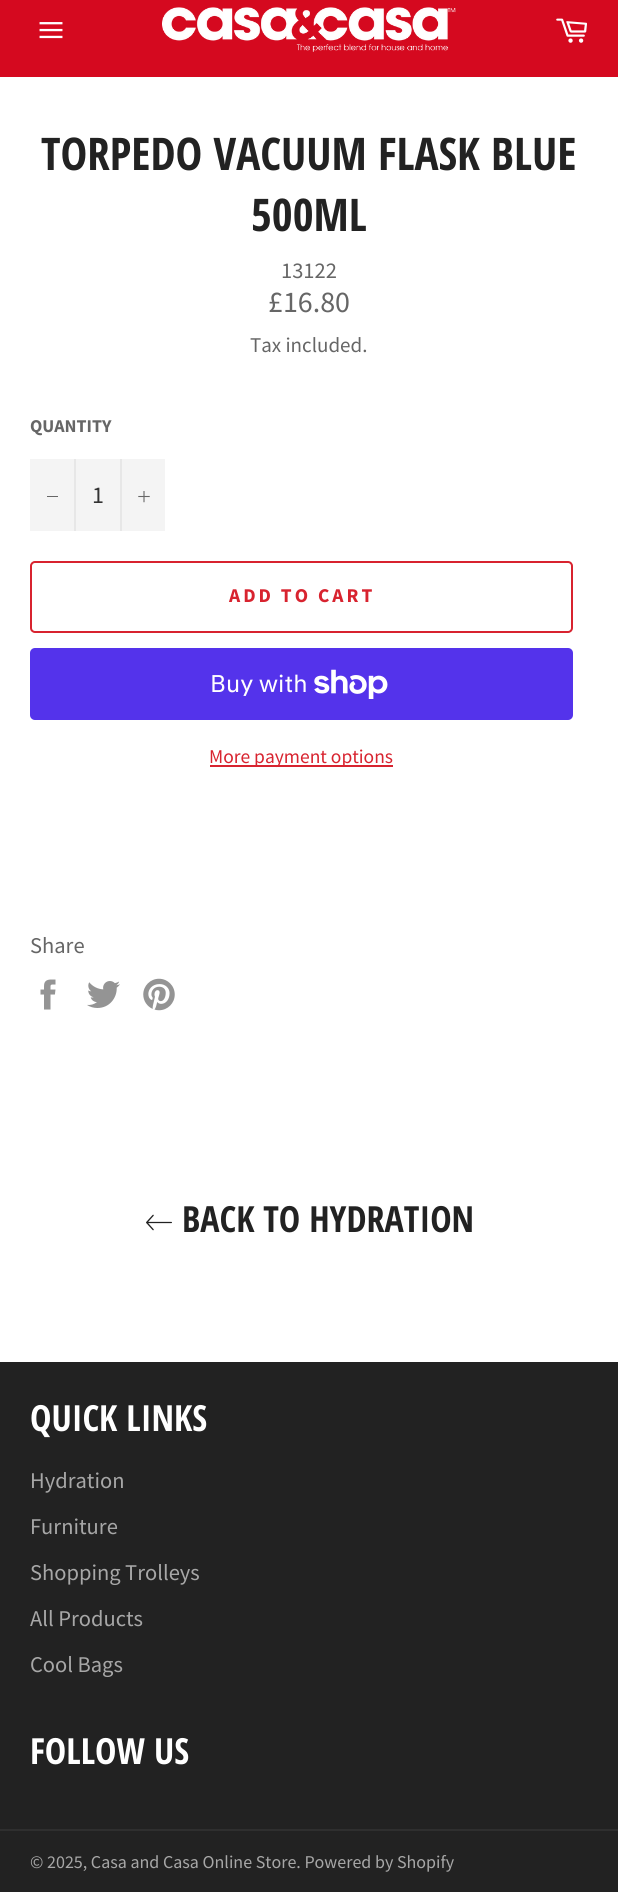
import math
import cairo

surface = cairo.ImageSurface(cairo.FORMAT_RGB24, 618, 1892)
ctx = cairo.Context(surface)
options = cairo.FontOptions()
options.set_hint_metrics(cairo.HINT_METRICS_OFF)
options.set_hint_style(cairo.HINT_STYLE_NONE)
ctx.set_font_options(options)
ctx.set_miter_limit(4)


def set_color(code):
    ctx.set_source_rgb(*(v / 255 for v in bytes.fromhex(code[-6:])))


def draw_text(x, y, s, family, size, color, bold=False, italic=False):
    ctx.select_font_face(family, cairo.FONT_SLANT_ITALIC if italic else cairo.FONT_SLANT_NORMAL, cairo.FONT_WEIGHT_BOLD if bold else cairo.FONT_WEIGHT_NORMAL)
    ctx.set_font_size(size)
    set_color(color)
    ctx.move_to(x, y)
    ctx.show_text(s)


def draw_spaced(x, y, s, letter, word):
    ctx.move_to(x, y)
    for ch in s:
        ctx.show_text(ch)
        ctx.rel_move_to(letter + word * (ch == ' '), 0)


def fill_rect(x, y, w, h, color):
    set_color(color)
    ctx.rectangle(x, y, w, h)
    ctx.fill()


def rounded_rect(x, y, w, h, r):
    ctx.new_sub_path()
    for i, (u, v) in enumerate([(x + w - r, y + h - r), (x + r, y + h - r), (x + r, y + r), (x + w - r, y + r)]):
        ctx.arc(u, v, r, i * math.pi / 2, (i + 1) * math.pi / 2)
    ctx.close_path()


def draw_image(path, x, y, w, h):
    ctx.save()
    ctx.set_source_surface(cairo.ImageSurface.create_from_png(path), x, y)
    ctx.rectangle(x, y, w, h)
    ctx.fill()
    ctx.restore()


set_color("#ffffff")
ctx.paint()
fill_rect(0, 0, 618, 77, "#d5091f")
draw_image("assets/img1.png", 39, 22, 24, 17)
draw_image("assets/img2.png", 162, 7, 294, 45)
draw_image("assets/img3.png", 556, 18, 31, 25)
draw_text(41, 170, "TORPEDO VACUUM FLASK BLUE", "Open Sans Condensed", 45, "#222222", bold=True)
draw_text(251, 231, "500ML", "Open Sans Condensed", 45, "#222222", bold=True)
draw_text(281, 278, "13122", "Source Sans Pro", 22.5, "#666666")
draw_text(268, 312, "£16.80", "Source Sans Pro", 30, "#666666")
draw_text(250, 352, "Tax included.", "Source Sans Pro", 21, "#666666")
draw_text(30, 432, "QUANTITY", "Source Sans Pro", 18, "#666666", bold=True)
fill_rect(30, 459, 135, 72, "#f4f4f4")
fill_rect(74, 459, 2, 72, "#e7e7e7")
fill_rect(47, 496, 11, 1, "#666666")
draw_text(92, 503, "1", "Source Sans Pro", 24, "#333333")
fill_rect(120, 459, 2, 72, "#e7e7e7")
draw_image("assets/img4.png", 138, 491, 12, 12)
rounded_rect(31, 562, 541, 70, 4)
set_color("#d8232f")
ctx.stroke()
ctx.select_font_face("Source Sans Pro", cairo.FONT_SLANT_NORMAL, cairo.FONT_WEIGHT_BOLD)
ctx.set_font_size(19.5)
draw_spaced(229, 602, "ADD TO CART", 3, 0)
set_color("#5433eb")
rounded_rect(30, 648, 543, 72, 5)
ctx.fill()
draw_text(210, 692, "Buy with", "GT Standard", 24, "#ffffff")
draw_image("assets/img5.png", 314, 669, 74, 30)
fill_rect(210, 765, 183, 2, "#d8232f")
draw_text(209, 763, "More payment options", "Source Sans Pro", 19.5, "#d8232f")
draw_text(30, 953, "Share", "Source Sans Pro", 22.5, "#666666")
draw_image("assets/img6.png", 40, 979, 16, 31)
draw_image("assets/img7.png", 87, 981, 33, 27)
draw_image("assets/img8.png", 143, 978, 32, 33)
draw_image("assets/img9.png", 146, 1214, 26, 17)
draw_text(182, 1232, "BACK TO HYDRATION", "Open Sans Condensed", 36, "#222222", bold=True)
fill_rect(0, 1362, 618, 530, "#222222")
draw_text(30, 1431, "QUICK LINKS", "Open Sans Condensed", 36, "#ffffff", bold=True)
draw_text(30, 1488, "Hydration", "Source Sans Pro", 22.5, "#a7a7a7")
draw_text(30, 1534, "Furniture", "Source Sans Pro", 22.5, "#a7a7a7")
draw_text(30, 1580, "Shopping Trolleys", "Source Sans Pro", 22.5, "#a7a7a7")
draw_text(30, 1626, "All Products", "Source Sans Pro", 22.5, "#a7a7a7")
draw_text(30, 1672, "Cool Bags", "Source Sans Pro", 22.5, "#a7a7a7")
draw_text(30, 1764, "FOLLOW US", "Open Sans Condensed", 36, "#ffffff", bold=True)
fill_rect(0, 1829, 618, 2, "#2f2f2f")
draw_text(30, 1868, "© 2025, Casa and Casa Online Store. Powered by Shopify", "Source Sans Pro", 18, "#a7a7a7")
surface.write_to_png("output.png")
